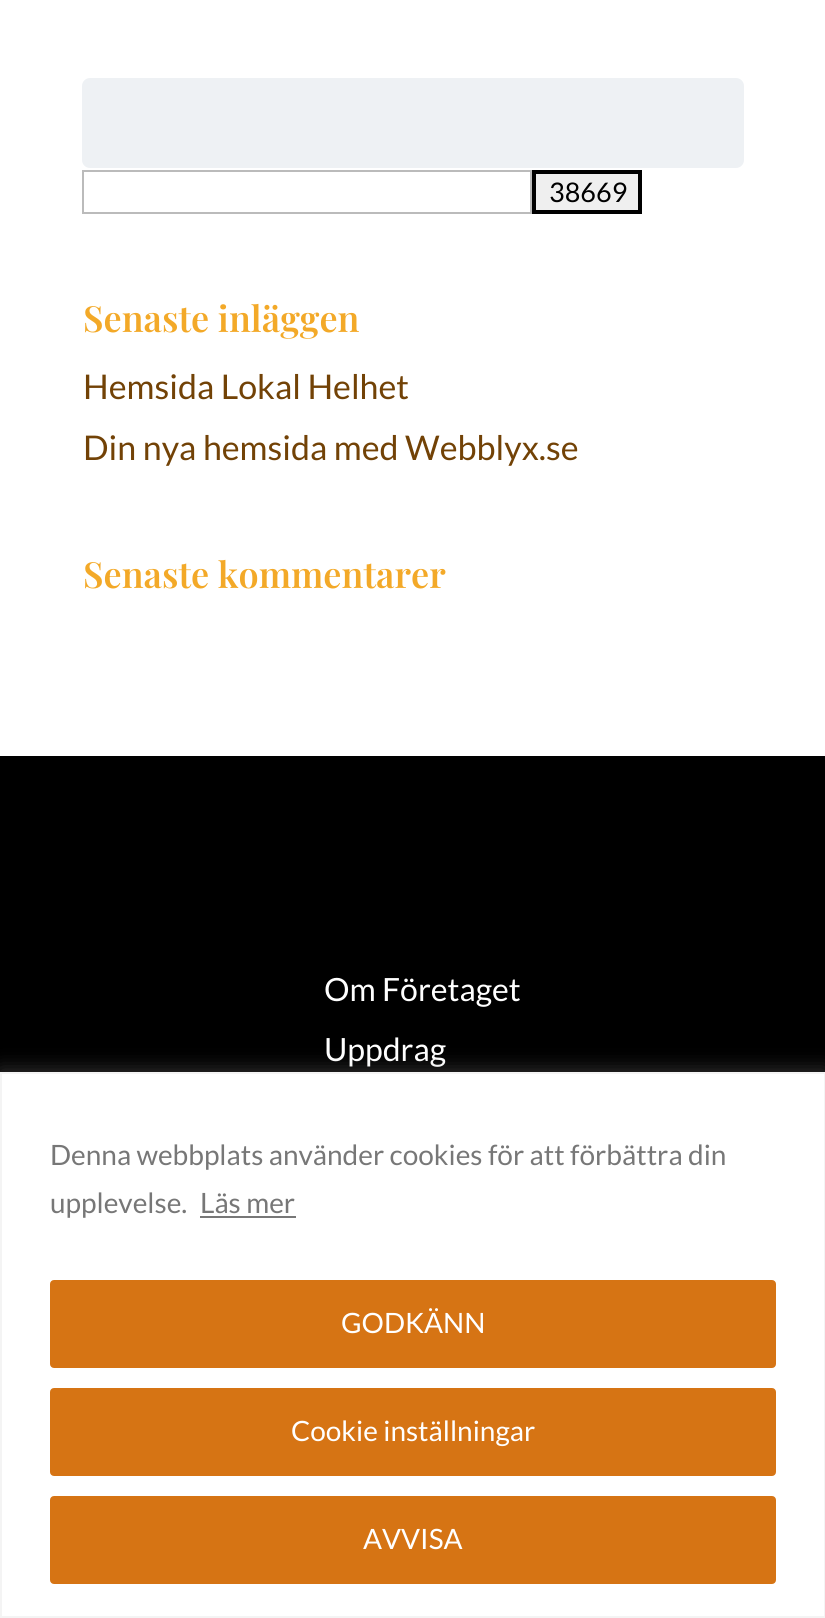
import math
import cairo

surface = cairo.ImageSurface(cairo.FORMAT_RGB24, 825, 1618)
ctx = cairo.Context(surface)
options = cairo.FontOptions()
options.set_hint_metrics(cairo.HINT_METRICS_OFF)
options.set_hint_style(cairo.HINT_STYLE_NONE)
ctx.set_font_options(options)
ctx.set_miter_limit(4)


def set_color(code):
    ctx.set_source_rgb(*(v / 255 for v in bytes.fromhex(code[-6:])))


def draw_text(x, y, s, family, size, color, bold=False, italic=False):
    ctx.select_font_face(family, cairo.FONT_SLANT_ITALIC if italic else cairo.FONT_SLANT_NORMAL, cairo.FONT_WEIGHT_BOLD if bold else cairo.FONT_WEIGHT_NORMAL)
    ctx.set_font_size(size)
    set_color(color)
    ctx.move_to(x, y)
    ctx.show_text(s)


def fill_rect(x, y, w, h, color):
    set_color(color)
    ctx.rectangle(x, y, w, h)
    ctx.fill()


def rounded_rect(x, y, w, h, r):
    ctx.new_sub_path()
    for i, (u, v) in enumerate([(x + w - r, y + h - r), (x + r, y + h - r), (x + r, y + r), (x + w - r, y + r)]):
        ctx.arc(u, v, r, i * math.pi / 2, (i + 1) * math.pi / 2)
    ctx.close_path()


def draw_shadow(x, y, w, h, r, blur, alpha):
    ctx.push_group_with_content(cairo.CONTENT_ALPHA)
    ctx.set_operator(cairo.OPERATOR_SOURCE)
    for i in range(15, -16, -2):
        e = blur * i / 6
        if min(w, h) + 2 * e > 0:
            ctx.set_source_rgba(0, 0, 0, alpha * math.erfc((i - 1) / 8.5) / 2)
            rounded_rect(x - e, y - e, w + 2 * e, h + 2 * e, max(0, min(r + e + blur * .6, min(w, h) / 2 + e)))
            ctx.fill()
    ctx.mask(ctx.pop_group())


set_color("#ffffff")
ctx.paint()
set_color("#eef1f4")
rounded_rect(82, 78, 662, 90, 8)
ctx.fill()
ctx.rectangle(83, 171, 448, 42)
set_color("#bbbbbb")
ctx.stroke()
set_color("#efefef")
ctx.rectangle(534, 172, 106, 40)
ctx.fill_preserve()
set_color("#000000")
ctx.set_line_width(4)
ctx.stroke()
draw_text(549, 202, "38669", "Lato", 27, "#000000")
draw_text(83, 332, "Senaste inläggen", "Playfair Display SemiBold", 36, "#f3a928")
draw_text(83, 399, "Hemsida Lokal Helhet", "Lato", 34, "#724206")
draw_text(83, 460, "Din nya hemsida med Webblyx.se", "Lato", 34, "#724206")
draw_text(83, 588, "Senaste kommentarer", "Playfair Display SemiBold", 36, "#f3a928")
fill_rect(0, 756, 825, 316, "#000000")
draw_text(324, 1001, "Om Företaget", "Lato", 32, "#ffffff")
draw_text(324, 1061, "Uppdrag", "Lato", 32, "#ffffff")
set_color("#acabab")
draw_shadow(0, 1070, 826, 546, 0, 10, 0.3)
set_color("#ffffff")
ctx.rectangle(1, 1073, 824, 544)
ctx.fill_preserve()
set_color("#f4f4f4")
ctx.set_line_width(2)
ctx.stroke()
draw_text(50, 1165, "Denna webbplats använder cookies för att förbättra din", "Lato", 28, "#777777")
draw_text(50, 1213, "upplevelse.", "Lato", 28, "#777777")
draw_text(200, 1213, "Läs mer", "Lato", 28, "#777777")
fill_rect(200, 1216, 96, 2, "#777777")
set_color("#d67414")
rounded_rect(52, 1282, 722, 84, 2)
ctx.fill_preserve()
ctx.set_line_width(4)
ctx.stroke()
draw_text(341, 1333, "GODKÄNN", "Lato", 28, "#ffffff")
set_color("#d67414")
rounded_rect(52, 1390, 722, 84, 2)
ctx.fill_preserve()
ctx.stroke()
draw_text(291, 1441, "Cookie inställningar", "Lato", 28, "#ffffff")
set_color("#d67414")
rounded_rect(52, 1498, 722, 84, 2)
ctx.fill_preserve()
ctx.stroke()
draw_text(363, 1549, "AVVISA", "Lato", 28, "#ffffff")
surface.write_to_png("output.png")
